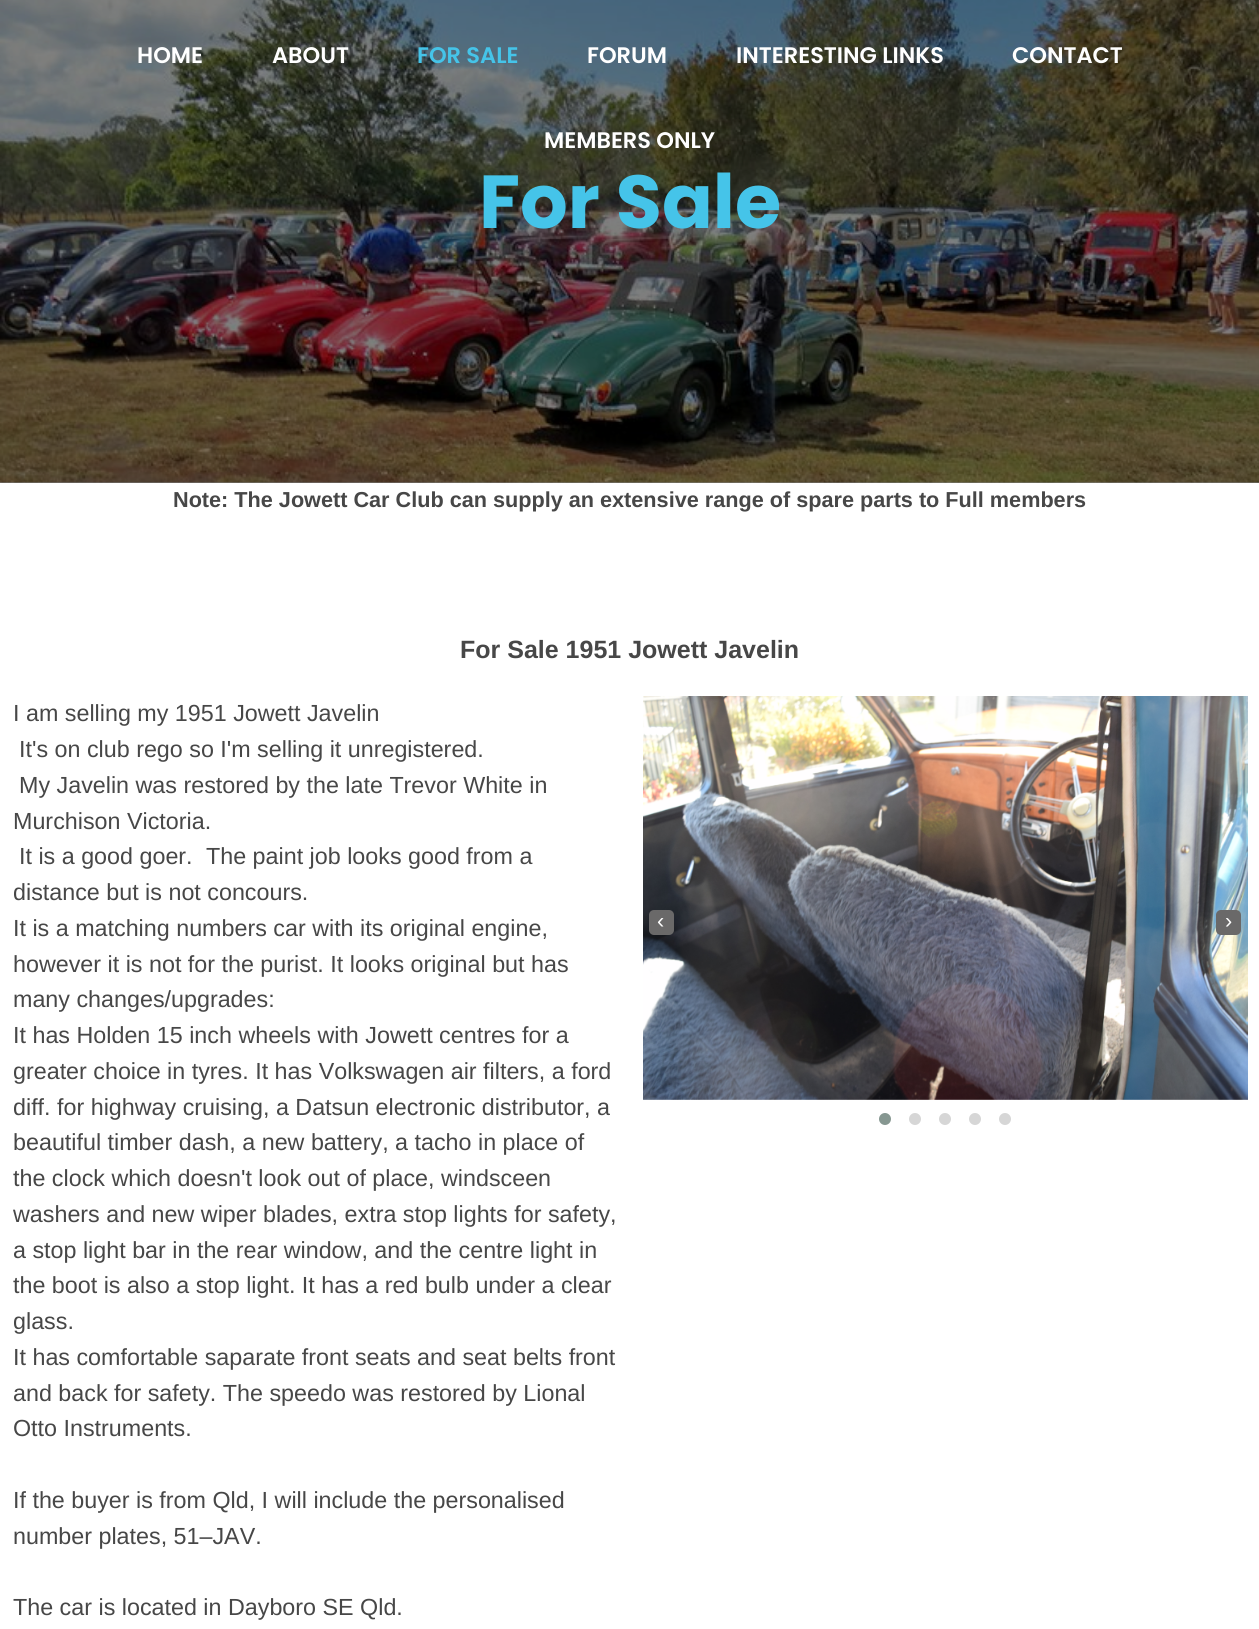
import math
import cairo

surface = cairo.ImageSurface(cairo.FORMAT_RGB24, 1259, 1629)
ctx = cairo.Context(surface)
options = cairo.FontOptions()
options.set_hint_metrics(cairo.HINT_METRICS_OFF)
options.set_hint_style(cairo.HINT_STYLE_NONE)
ctx.set_font_options(options)
ctx.set_miter_limit(4)


def set_color(code):
    ctx.set_source_rgb(*(v / 255 for v in bytes.fromhex(code[-6:])))


def draw_text(x, y, s, family, size, color, bold=False, italic=False):
    ctx.select_font_face(family, cairo.FONT_SLANT_ITALIC if italic else cairo.FONT_SLANT_NORMAL, cairo.FONT_WEIGHT_BOLD if bold else cairo.FONT_WEIGHT_NORMAL)
    ctx.set_font_size(size)
    set_color(color)
    ctx.move_to(x, y)
    ctx.show_text(s)


def fill_rect(x, y, w, h, color):
    set_color(color)
    ctx.rectangle(x, y, w, h)
    ctx.fill()


def rounded_rect(x, y, w, h, r):
    ctx.new_sub_path()
    for i, (u, v) in enumerate([(x + w - r, y + h - r), (x + r, y + h - r), (x + r, y + r), (x + w - r, y + r)]):
        ctx.arc(u, v, r, i * math.pi / 2, (i + 1) * math.pi / 2)
    ctx.close_path()


def draw_image(path, x, y, w, h):
    ctx.save()
    ctx.set_source_surface(cairo.ImageSurface.create_from_png(path), x, y)
    ctx.rectangle(x, y, w, h)
    ctx.fill()
    ctx.restore()


set_color("#ffffff")
ctx.paint()
fill_rect(0, 482, 1259, 1, "#808080")
draw_image("assets/img1.png", 0, 0, 1259, 483)
draw_text(137, 63, "HOME", "Poppins SemiBold", 22.5, "#ffffff")
draw_text(272, 63, "ABOUT", "Poppins SemiBold", 22.5, "#ffffff")
draw_text(417, 63, "FOR SALE", "Poppins SemiBold", 22.5, "#45c4e9")
draw_text(587, 63, "FORUM", "Poppins SemiBold", 22.5, "#ffffff")
draw_text(736, 63, "INTERESTING LINKS", "Poppins SemiBold", 22.5, "#ffffff")
draw_text(1012, 63, "CONTACT", "Poppins SemiBold", 22.5, "#ffffff")
draw_text(544, 148, "MEMBERS ONLY", "Poppins SemiBold", 22.5, "#ffffff")
draw_text(479, 228, "For Sale", "Poppins", 75, "#45c4e9", bold=True)
draw_text(173, 507, "Note: The Jowett Car Club can supply an extensive range of spare parts to Full members", "Liberation Sans", 21.65, "#474747", bold=True)
draw_text(460, 658, "For Sale 1951 Jowett Javelin", "Liberation Sans", 25, "#474747", bold=True)
draw_text(13, 721, "I am selling my 1951 Jowett Javelin", "Liberation Sans", 23.3, "#474747")
draw_text(19, 757, "It's on club rego so I'm selling it unregistered.", "Liberation Sans", 23.3, "#474747")
draw_text(19, 793, "My Javelin was restored by the late Trevor White in", "Liberation Sans", 23.3, "#474747")
draw_text(13, 829, "Murchison Victoria.", "Liberation Sans", 23.3, "#474747")
draw_text(19, 864, "It is a good goer.", "Liberation Sans", 23.3, "#474747")
draw_text(206, 864, "The paint job looks good from a", "Liberation Sans", 23.3, "#474747")
draw_text(13, 900, "distance but is not concours.", "Liberation Sans", 23.3, "#474747")
draw_text(13, 936, "It is a matching numbers car with its original engine,", "Liberation Sans", 23.3, "#474747")
draw_text(13, 972, "however it is not for the purist. It looks original but has", "Liberation Sans", 23.3, "#474747")
draw_text(13, 1007, "many changes/upgrades:", "Liberation Sans", 23.3, "#474747")
draw_text(13, 1043, "It has Holden 15 inch wheels with Jowett centres for a", "Liberation Sans", 23.3, "#474747")
draw_text(13, 1079, "greater choice in tyres. It has Volkswagen air filters, a ford", "Liberation Sans", 23.3, "#474747")
draw_text(13, 1115, "diff. for highway cruising, a Datsun electronic distributor, a", "Liberation Sans", 23.3, "#474747")
draw_text(13, 1150, "beautiful timber dash, a new battery, a tacho in place of", "Liberation Sans", 23.3, "#474747")
draw_text(13, 1186, "the clock which doesn't look out of place, windsceen", "Liberation Sans", 23.3, "#474747")
draw_text(13, 1222, "washers and new wiper blades, extra stop lights for safety,", "Liberation Sans", 23.3, "#474747")
draw_text(13, 1258, "a stop light bar in the rear window, and the centre light in", "Liberation Sans", 23.3, "#474747")
draw_text(13, 1293, "the boot is also a stop light. It has a red bulb under a clear", "Liberation Sans", 23.3, "#474747")
draw_text(13, 1329, "glass.", "Liberation Sans", 23.3, "#474747")
draw_text(13, 1365, "It has comfortable saparate front seats and seat belts front", "Liberation Sans", 23.3, "#474747")
draw_text(13, 1401, "and back for safety. The speedo was restored by Lional", "Liberation Sans", 23.3, "#474747")
draw_text(13, 1436, "Otto Instruments.", "Liberation Sans", 23.3, "#474747")
draw_text(13, 1508, "If the buyer is from Qld, I will include the personalised", "Liberation Sans", 23.3, "#474747")
draw_text(13, 1544, "number plates, 51–JAV.", "Liberation Sans", 23.3, "#474747")
draw_text(13, 1615, "The car is located in Dayboro SE Qld.", "Liberation Sans", 23.3, "#474747")
draw_image("assets/img2.png", 643, 696, 605, 404)
set_color("#6a6969")
rounded_rect(649, 910, 25, 25, 5)
ctx.fill()
draw_text(657, 928, "‹", "Liberation Sans", 21.65, "#ffffff")
set_color("#6a6969")
rounded_rect(1216, 910, 25, 25, 5)
ctx.fill()
draw_text(1225, 928, "›", "Liberation Sans", 21.65, "#ffffff")
set_color("#869791")
ctx.new_path()
ctx.arc(885, 1119, 6, 0, 2 * math.pi)
ctx.fill()
set_color("#d6d6d6")
ctx.arc(915, 1119, 6, 0, 2 * math.pi)
ctx.fill()
ctx.arc(945, 1119, 6, 0, 2 * math.pi)
ctx.fill()
ctx.arc(975, 1119, 6, 0, 2 * math.pi)
ctx.fill()
ctx.arc(1005, 1119, 6, 0, 2 * math.pi)
ctx.fill()
surface.write_to_png("output.png")
